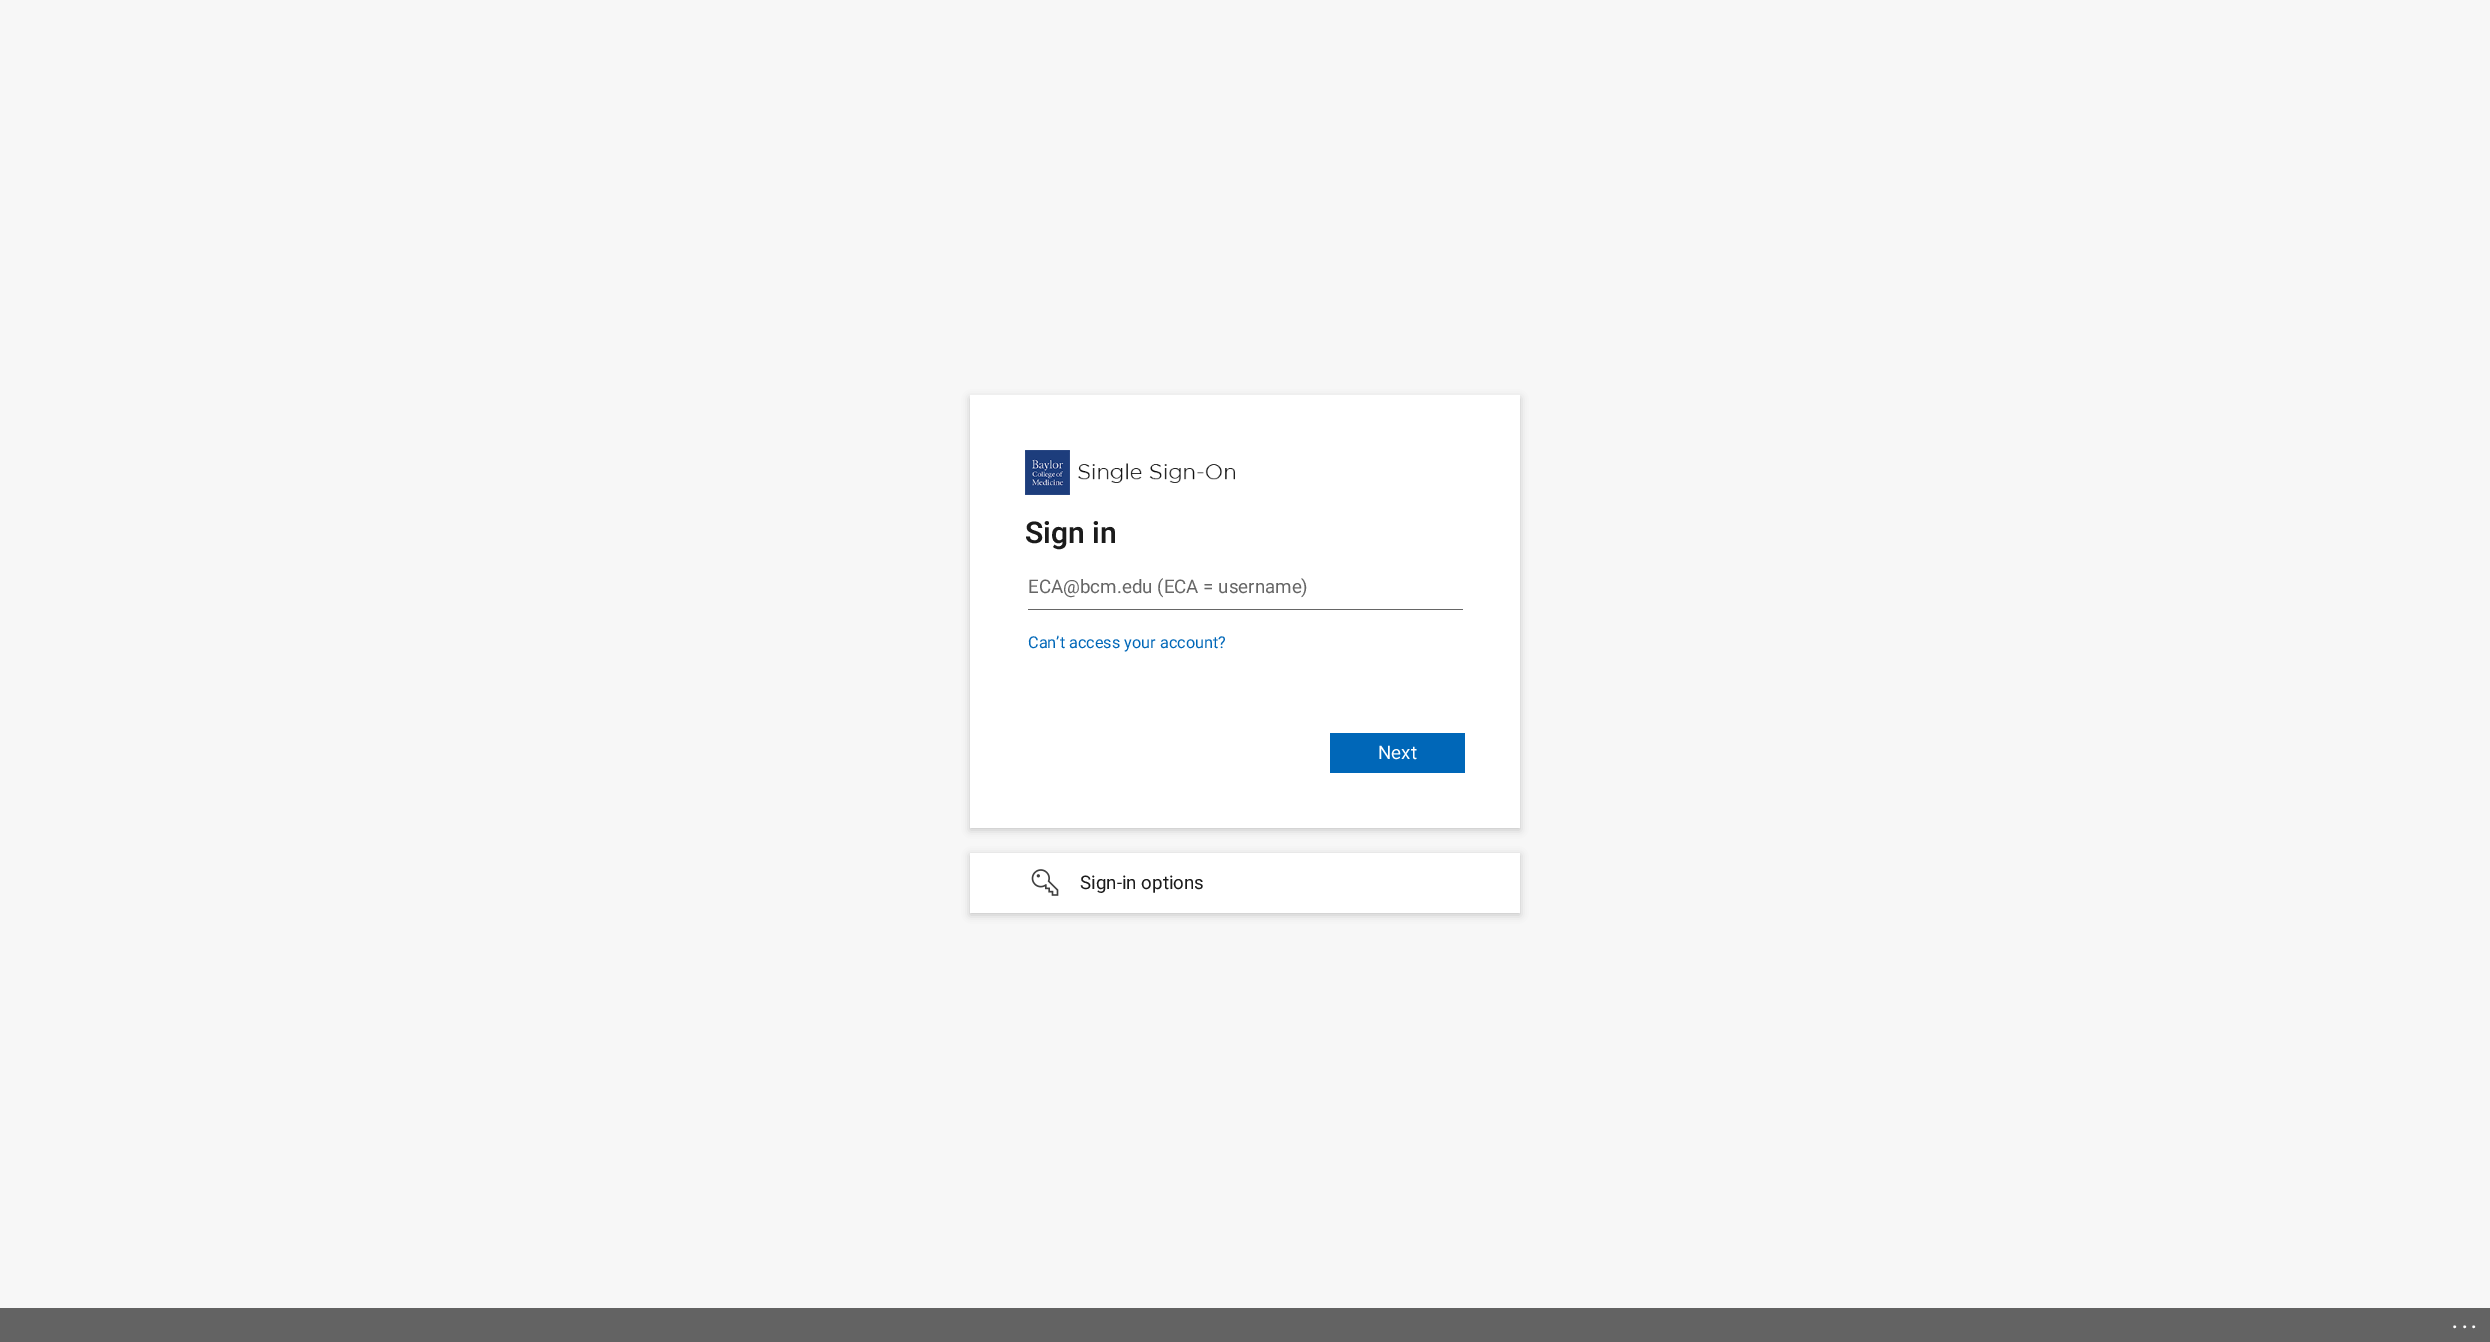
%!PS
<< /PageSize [2490 1342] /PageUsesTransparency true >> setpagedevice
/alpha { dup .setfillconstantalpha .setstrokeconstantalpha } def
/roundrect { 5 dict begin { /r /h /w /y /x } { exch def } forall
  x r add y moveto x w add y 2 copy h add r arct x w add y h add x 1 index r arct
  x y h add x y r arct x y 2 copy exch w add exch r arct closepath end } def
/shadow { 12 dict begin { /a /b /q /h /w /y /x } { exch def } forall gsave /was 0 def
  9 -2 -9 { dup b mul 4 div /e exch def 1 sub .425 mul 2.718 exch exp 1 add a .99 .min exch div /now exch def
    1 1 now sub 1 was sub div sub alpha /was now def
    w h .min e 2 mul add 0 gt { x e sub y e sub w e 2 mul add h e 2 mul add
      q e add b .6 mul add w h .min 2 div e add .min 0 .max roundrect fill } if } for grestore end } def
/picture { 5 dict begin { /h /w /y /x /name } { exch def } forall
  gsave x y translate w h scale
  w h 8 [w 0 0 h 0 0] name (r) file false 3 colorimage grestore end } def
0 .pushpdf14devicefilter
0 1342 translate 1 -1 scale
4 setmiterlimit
0.969 setgray
0 0 2490 1342 rectfill
0 setgray
970 398 550 432 0 4 0.2 shadow
1 setgray
970 395 550 433 rectfill
(img1.rgb) 1025 450 210 45 picture
/Roboto-SemiBold [30 0 0 -30 0 0] selectfont
0.106 setgray
1025 543 moveto (Sign in) show
0.4 setgray
1028 609 435 1 rectfill
/Roboto-Regular [18.75 0 0 -18.75 0 0] selectfont
1028 593 moveto (ECA@bcm.edu \(ECA = username\)) show
/Roboto-Regular [16.25 0 0 -16.25 0 0] selectfont
0 0.404 0.722 setrgbcolor
1028 648 moveto (Can’t access your account?) show
1330 733 135 40 rectfill
/Roboto-Regular [18.75 0 0 -18.75 0 0] selectfont
1 setgray
1378 759 moveto (Next) show
0 setgray
970 855 550 60 0 4 0.2 shadow
1 setgray
970 853 550 60 rectfill
(img2.rgb) 1031 869 28 27 picture
0.106 setgray
1080 889 moveto (Sign-in options) show
0.388 setgray
0 1308 2490 34 rectfill
/Roboto-SemiBold [20 0 0 -20 0 0] selectfont
1 setgray
2452 1328 moveto 4 0 (...) ashow
.poppdf14devicefilter showpage
